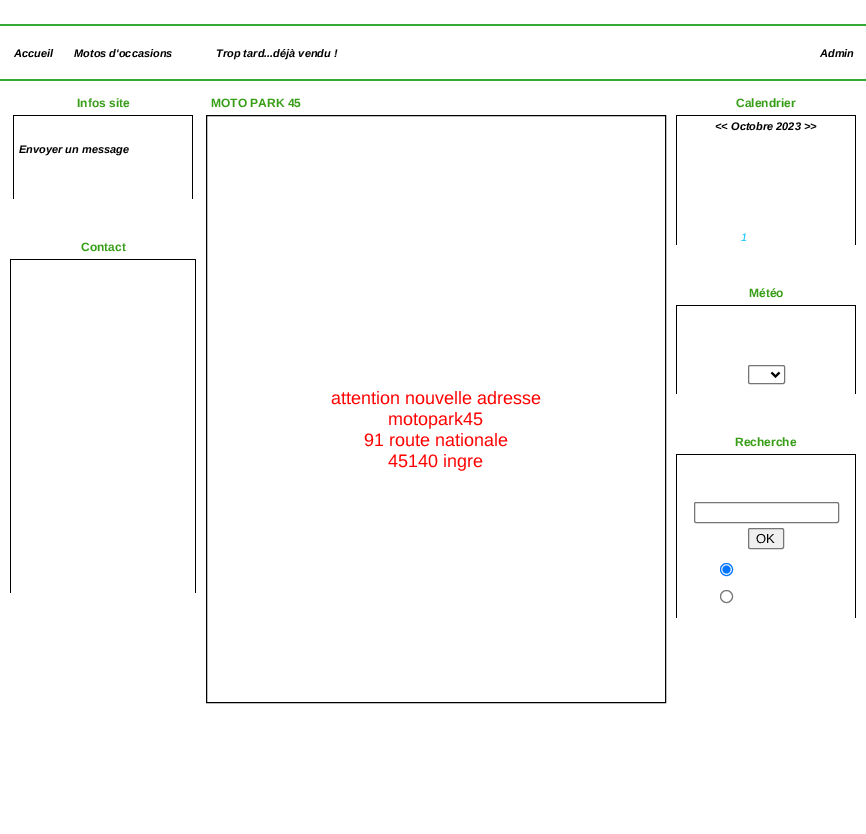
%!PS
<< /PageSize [866 834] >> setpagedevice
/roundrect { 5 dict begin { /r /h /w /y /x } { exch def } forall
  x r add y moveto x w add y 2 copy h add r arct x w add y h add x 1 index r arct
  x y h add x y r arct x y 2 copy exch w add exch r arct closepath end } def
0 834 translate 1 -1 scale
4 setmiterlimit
1 setgray
0 0 866 834 rectfill
0.2 0.667 0.2 setrgbcolor
0 24 866 2 rectfill
/LiberationSans-BoldItalic [11 0 0 -11 0 0] selectfont
0 setgray
14 57 moveto (Accueil) show
74 57 moveto (Motos d'occasions) show
216 57 moveto (Trop tard...déjà vendu !) show
820 57 moveto (Admin) show
0.2 0.667 0.2 setrgbcolor
0 79 866 2 rectfill
/LiberationSans-Bold [12 0 0 -12 0 0] selectfont
0.22 0.62 0.094 setrgbcolor
77 107 moveto (Infos site) show
0 setgray
13 115 180 1 rectfill
192 115 1 84 rectfill
13 115 1 84 rectfill
/LiberationSans-BoldItalic [11 0 0 -11 0 0] selectfont
19 153 moveto (Envoyer un message) show
/LiberationSans-Bold [12 0 0 -12 0 0] selectfont
0.22 0.62 0.094 setrgbcolor
81 251 moveto (Contact) show
0 setgray
10 259 186 1 rectfill
195 259 1 334 rectfill
10 259 1 334 rectfill
0.22 0.62 0.094 setrgbcolor
211 107 moveto (MOTO PARK 45) show
0 setgray
206.5 115.5 459 587 rectstroke
/LiberationSans-Regular [18 0 0 -18 0 0] selectfont
1 0 0 setrgbcolor
331 404 moveto (attention nouvelle adresse) show
388 425 moveto (motopark45) show
364 446 moveto (91 route nationale) show
388 467 moveto (45140 ingre) show
/LiberationSans-Bold [12 0 0 -12 0 0] selectfont
0.22 0.62 0.094 setrgbcolor
736 107 moveto (Calendrier) show
0 setgray
676 115 180 1 rectfill
855 115 1 130 rectfill
676 115 1 130 rectfill
/LiberationSans-BoldItalic [11 0 0 -11 0 0] selectfont
715 130 moveto (<<) show
731 130 moveto (Octobre 2023) show
804 130 moveto (>>) show
/LiberationSans-Italic [11 0 0 -11 0 0] selectfont
0 0.749 1 setrgbcolor
741 241 moveto (1) show
/LiberationSans-Bold [12 0 0 -12 0 0] selectfont
0.22 0.62 0.094 setrgbcolor
749 297 moveto (Météo) show
0 setgray
676 305 180 1 rectfill
855 305 1 89 rectfill
676 305 1 89 rectfill
0.463 setgray
748.5 365.5 36 18 1.5 roundrect stroke
0 setgray
2 setlinewidth
newpath 771.5 372.5 moveto 775.5 376.5 lineto 779.5 372.5 lineto stroke
0.22 0.62 0.094 setrgbcolor
735 446 moveto (Recherche) show
0 setgray
676 454 180 1 rectfill
855 454 1 164 rectfill
676 454 1 164 rectfill
0.463 setgray
1 setlinewidth
694.5 502.5 144 20 1.5 roundrect stroke
0.937 setgray
748.5 528.5 35 20 1.5 roundrect gsave fill grestore
0.463 setgray
stroke
/LiberationSans-Regular [13 0 0 -13 0 0] selectfont
0 setgray
756 543 moveto (OK) show
0 0.459 1 setrgbcolor
newpath 726.5 569.5 6 0 360 arc closepath stroke
newpath 726.5 569.5 4 0 360 arc closepath fill
0.463 setgray
newpath 726.5 596.5 6 0 360 arc closepath stroke
showpage
